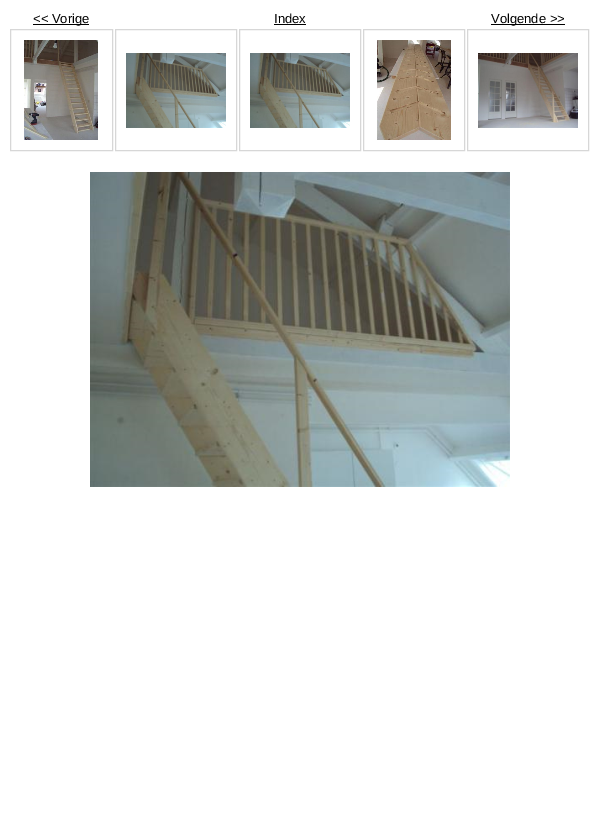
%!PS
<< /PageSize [599 833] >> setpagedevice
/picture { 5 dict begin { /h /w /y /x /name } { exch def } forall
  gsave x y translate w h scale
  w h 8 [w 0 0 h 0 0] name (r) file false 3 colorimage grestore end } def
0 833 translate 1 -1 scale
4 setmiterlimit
1 setgray
0 0 599 833 rectfill
0 setgray
33 24 56 1 rectfill
/LiberationSans-Regular [13 0 0 -13 0 0] selectfont
33 23 moveto (<< Vorige) show
274 23 moveto (Index) show
274 24 32 1 rectfill
491 24 74 1 rectfill
491 23 moveto (Volgende >>) show
0.843 setgray
10.5 29.5 102 121 rectstroke
(img1.rgb) 24 40 74 100 picture
115.5 29.5 121 121 rectstroke
(img2.rgb) 126 53 100 75 picture
239.5 29.5 121 121 rectstroke
(img3.rgb) 250 53 100 75 picture
363.5 29.5 101 121 rectstroke
(img4.rgb) 377 40 74 100 picture
467.5 29.5 121 121 rectstroke
(img5.rgb) 478 53 100 75 picture
(img6.rgb) 90 172 420 315 picture
showpage
